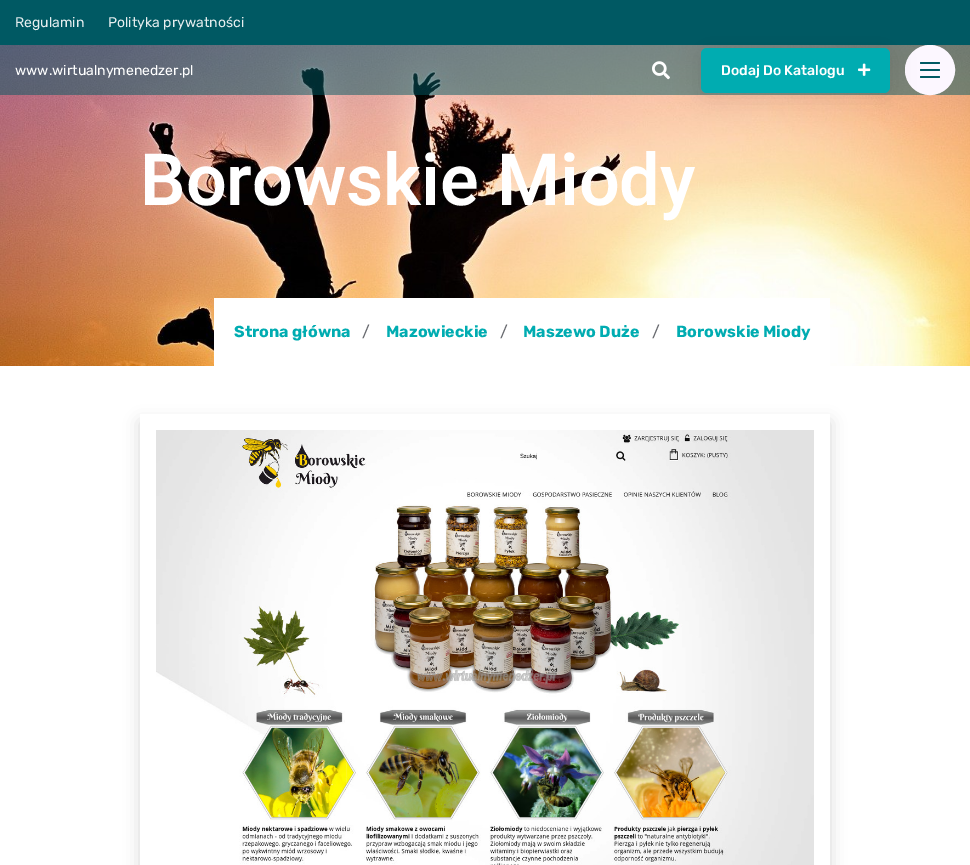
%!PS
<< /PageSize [970 865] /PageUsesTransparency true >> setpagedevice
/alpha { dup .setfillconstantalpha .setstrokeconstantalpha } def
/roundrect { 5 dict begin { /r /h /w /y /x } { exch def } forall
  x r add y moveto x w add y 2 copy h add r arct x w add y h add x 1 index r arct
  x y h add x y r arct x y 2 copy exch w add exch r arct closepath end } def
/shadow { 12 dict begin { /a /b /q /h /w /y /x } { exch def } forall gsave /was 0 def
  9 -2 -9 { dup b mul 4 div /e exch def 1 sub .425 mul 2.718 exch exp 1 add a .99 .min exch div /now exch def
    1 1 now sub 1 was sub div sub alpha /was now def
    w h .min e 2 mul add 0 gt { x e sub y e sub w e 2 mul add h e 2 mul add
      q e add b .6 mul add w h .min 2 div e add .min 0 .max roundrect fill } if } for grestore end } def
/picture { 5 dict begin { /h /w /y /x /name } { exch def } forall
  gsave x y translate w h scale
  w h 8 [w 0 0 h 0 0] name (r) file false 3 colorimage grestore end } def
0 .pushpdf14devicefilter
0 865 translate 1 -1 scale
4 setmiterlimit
1 setgray
0 0 970 865 rectfill
0 0.349 0.388 setrgbcolor
0 0 970 45 rectfill
/Rubik-Regular [14 0 0 -14 0 0] selectfont
0.902 0.933 0.937 setrgbcolor
15 27 moveto (Regulamin) show
108 27 moveto (Polityka prywatności) show
(img3.rgb) 0 45 970 321 picture
0.5 alpha
0 0.349 0.388 setrgbcolor
0 45 970 50 rectfill
1 alpha
1 setgray
15 75 moveto (www.wirtualnymenedzer.pl) show
(img1.rgb) 652 61 18 19 picture
0.988 0.969 1 setrgbcolor
newpath 930 70 24.5 0 360 arc closepath gsave fill grestore
stroke
0 0.349 0.388 setrgbcolor
920 62 20 2 1 roundrect fill
920 69 20 2 1 roundrect fill
920 76 20 2 1 roundrect fill
0 setgray
701 51 189 45 6 12 0.1 shadow
0 0.675 0.694 setrgbcolor
701 48 189 45 6 roundrect fill
/Rubik-Medium [14 0 0 -14 0 0] selectfont
1 setgray
721 75 moveto (Dodaj Do Katalogu) show
(img2.rgb) 858 63 13 13 picture
/Heebo-SemiBold [72 0 0 -72 0 0] selectfont
140 205 moveto (Borowskie Miody) show
214 298 616 68 rectfill
/Rubik-Bold [16 0 0 -16 0 0] selectfont
0 0.675 0.694 setrgbcolor
234 337 moveto (Strona główna) show
/Rubik-Regular [16 0 0 -16 0 0] selectfont
0.408 0.416 0.435 setrgbcolor
362 337 moveto (/) show
/Rubik-Bold [16 0 0 -16 0 0] selectfont
0 0.675 0.694 setrgbcolor
386 337 moveto (Mazowieckie) show
/Rubik-Regular [16 0 0 -16 0 0] selectfont
0.408 0.416 0.435 setrgbcolor
500 337 moveto (/) show
/Rubik-Bold [16 0 0 -16 0 0] selectfont
0 0.675 0.694 setrgbcolor
523 337 moveto (Maszewo Duże) show
/Rubik-Regular [16 0 0 -16 0 0] selectfont
0.408 0.416 0.435 setrgbcolor
652 337 moveto (/) show
/Rubik-Bold [16 0 0 -16 0 0] selectfont
0 0.675 0.694 setrgbcolor
676 337 moveto (Borowskie Miody) show
gsave
newpath 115 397 moveto 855 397 lineto 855 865 lineto 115 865 lineto closepath 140 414 moveto 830 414 lineto 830 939 lineto 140 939 lineto closepath eoclip newpath
0 setgray
140 422 690 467 0 8 0.15 shadow
grestore
(img4.rgb) 156 430 658 435 picture
.poppdf14devicefilter showpage
